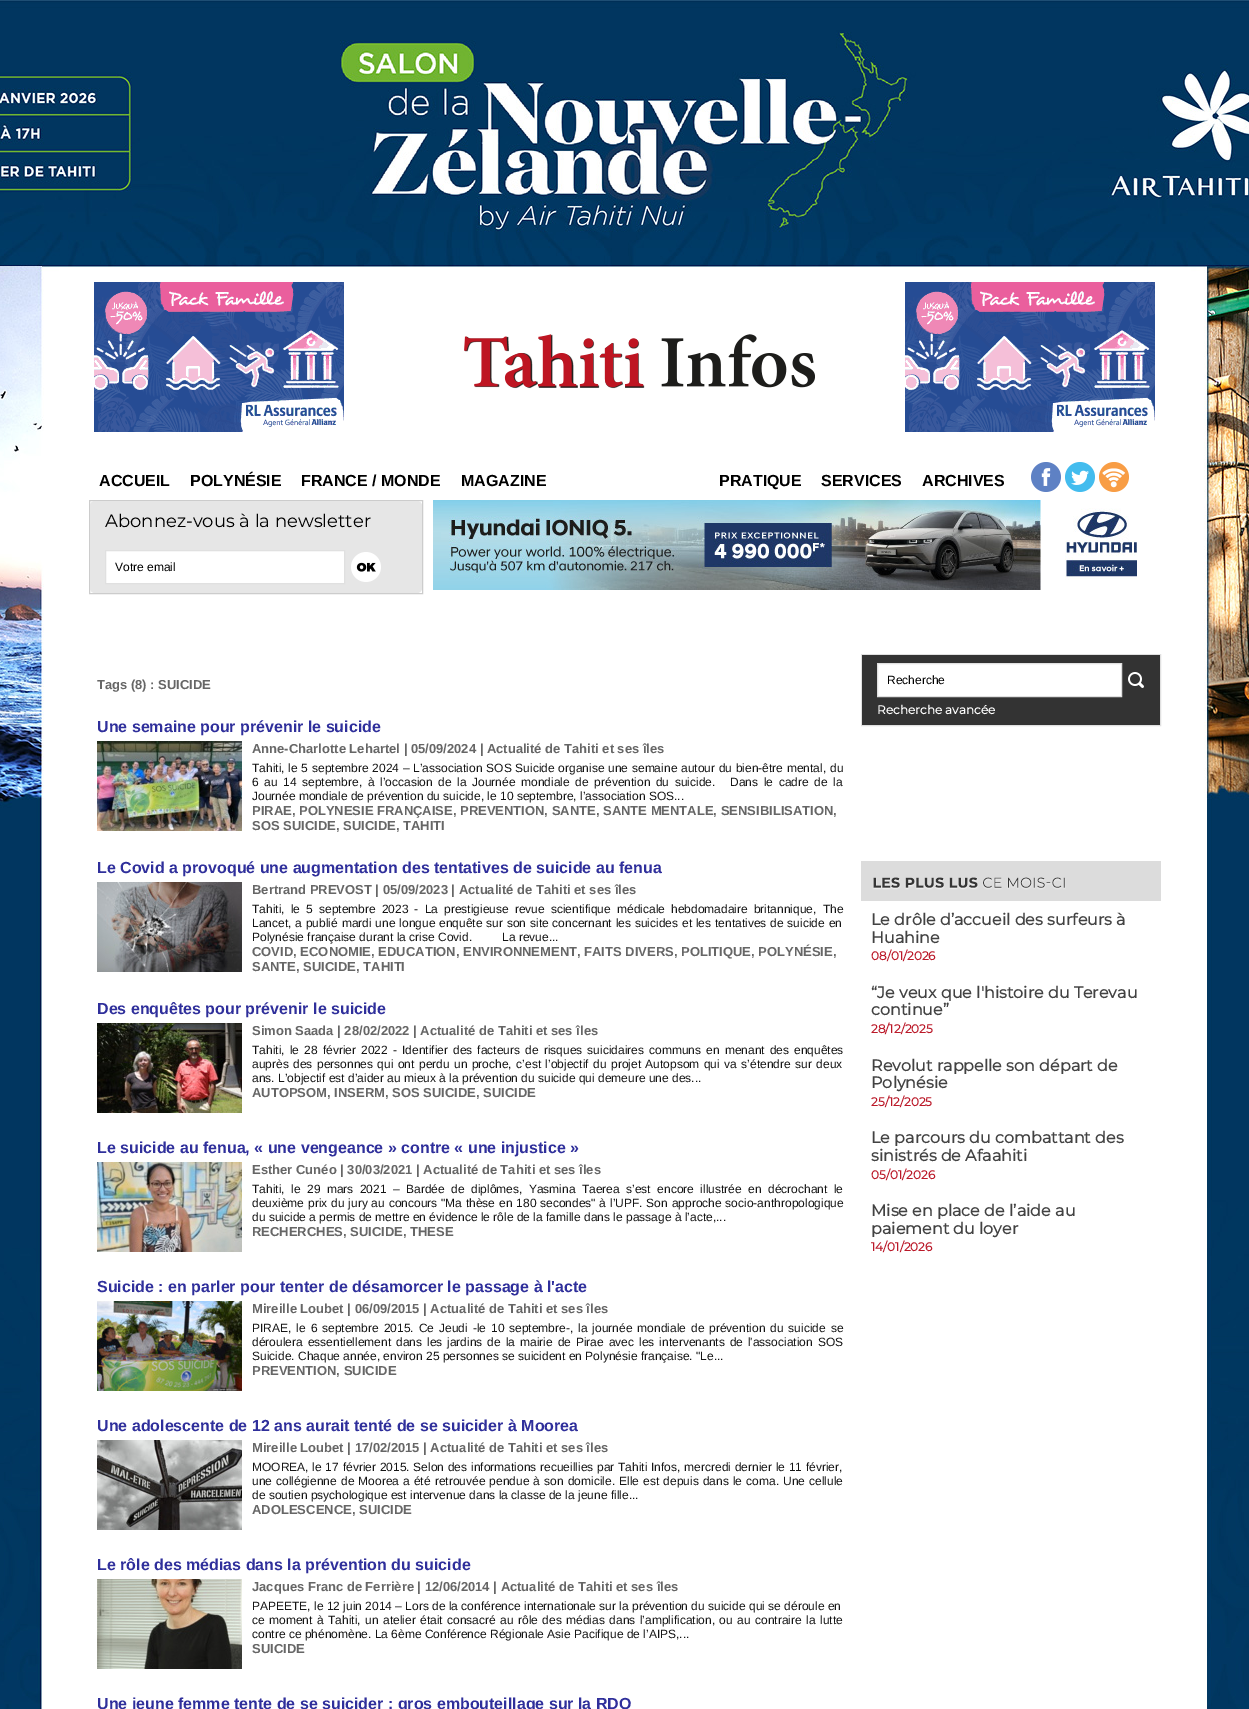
%!PS
<< /PageSize [1249 1709] >> setpagedevice
/picture { 5 dict begin { /h /w /y /x /name } { exch def } forall
  gsave x y translate w h scale
  w h 8 [w 0 0 h 0 0] name (r) file false 3 colorimage grestore end } def
0 1709 translate 1 -1 scale
4 setmiterlimit
1 setgray
0 0 1249 1709 rectfill
(img1.rgb) 0 0 1249 1709 picture
59 267 1132 5 rectfill
(img2.rgb) 94 282 250 150 picture
(img3.rgb) 464 334 351 55 picture
(img2.rgb) 905 282 250 150 picture
/LiberationSans-Bold [16 0 0 -16 0 0] selectfont
0 setgray
99 486 moveto (ACCUEIL) show
190 486 moveto (POLYNÉSIE) show
301 486 moveto (FRANCE / MONDE) show
461 486 moveto (MAGAZINE) show
719 486 moveto (PRATIQUE) show
821 486 moveto (SERVICES) show
922 486 moveto (ARCHIVES) show
(img4.rgb) 1031 462 30 30 picture
(img5.rgb) 1065 462 30 30 picture
(img6.rgb) 1099 462 30 30 picture
0.8 setgray
89.5 500.5 333 93 rectstroke
0.902 setgray
newpath 95 501 moveto 417 501 lineto 420 501 422 503 422 506 curveto 422 541 lineto 90 541 lineto 90 506 lineto 90 503 92 501 95 501 curveto closepath fill
/Montserrat-Thin [18 0 0 -18 0 0] selectfont
0 setgray
105 527 moveto (Abonnez-vous à la newsletter) show
0.902 setgray
newpath 90 541 moveto 422 541 lineto 422 588 lineto 422 591 420 593 417 593 curveto 95 593 lineto 92 593 90 591 90 588 curveto closepath fill
1 setgray
newpath 105.5 550.5 moveto 344.5 550.5 lineto 344.5 583.5 lineto 105.5 583.5 lineto closepath gsave fill grestore
0.878 setgray
stroke
/LiberationSans-Regular [12 0 0 -12 0 0] selectfont
0 setgray
115 571 moveto (Votre email) show
(img7.rgb) 351 552 30 30 picture
(img8.rgb) 433 500 704 90 picture
/LiberationSans-Bold [13 0 0 -13 0 0] selectfont
0.4 setgray
97 689 moveto (Tags \(8\) : SUICIDE) show
/LiberationSans-Bold [16 0 0 -16 0 0] selectfont
0.184 0.184 0.608 setrgbcolor
97 732 moveto (Une semaine pour prévenir le suicide) show
(img9.rgb) 97 741 145 90 picture
/LiberationSans-Bold [13 0 0 -13 0 0] selectfont
0.4 setgray
252 753 moveto (Anne-Charlotte Lehartel | 05/09/2024 | Actualité de Tahiti et ses îles) show
/LiberationSans-Regular [12 0 0 -12 0 0] selectfont
0.082 setgray
252 772 moveto 0.4 0 32 (Tahiti, le 5 septembre 2024 – L’association SOS Suicide organise une semaine autour du bien-être mental, du) widthshow
252 786 moveto 2.25 0 32 (6 au 14 septembre, à l’occasion de la Journée mondiale de prévention du suicide.) widthshow
730 786 moveto 2.25 0 32 (Dans le cadre de la) widthshow
252 800 moveto (Journée mondiale de prévention du suicide, le 10 septembre, l’association SOS...) show
/LiberationSans-Bold [13 0 0 -13 0 0] selectfont
0.4 setgray
252 815 moveto (PIRAE, POLYNESIE FRANÇAISE, PREVENTION, SANTE, SANTE MENTALE, SENSIBILISATION,) show
252 830 moveto (SOS SUICIDE, SUICIDE, TAHITI) show
/LiberationSans-Bold [16 0 0 -16 0 0] selectfont
0.184 0.184 0.608 setrgbcolor
97 873 moveto (Le Covid a provoqué une augmentation des tentatives de suicide au fenua) show
(img10.rgb) 97 882 145 90 picture
/LiberationSans-Bold [13 0 0 -13 0 0] selectfont
0.4 setgray
252 894 moveto (Bertrand PREVOST | 05/09/2023 | Actualité de Tahiti et ses îles) show
/LiberationSans-Regular [12 0 0 -12 0 0] selectfont
0.082 setgray
252 913 moveto 2.75 0 32 (Tahiti, le 5 septembre 2023 - La prestigieuse revue scientifique médicale hebdomadaire britannique, The) widthshow
252 927 moveto 0.5 0 32 (Lancet, a publié mardi une longue enquête sur son site concernant les suicides et les tentatives de suicide en) widthshow
252 941 moveto (Polynésie française durant la crise Covid.) show
502 941 moveto (La revue...) show
/LiberationSans-Bold [13 0 0 -13 0 0] selectfont
0.4 setgray
252 956 moveto (COVID, ECONOMIE, EDUCATION, ENVIRONNEMENT, FAITS DIVERS, POLITIQUE, POLYNÉSIE,) show
252 971 moveto (SANTE, SUICIDE, TAHITI) show
/LiberationSans-Bold [16 0 0 -16 0 0] selectfont
0.184 0.184 0.608 setrgbcolor
97 1014 moveto (Des enquêtes pour prévenir le suicide) show
(img11.rgb) 97 1023 145 90 picture
/LiberationSans-Bold [13 0 0 -13 0 0] selectfont
0.4 setgray
252 1035 moveto (Simon Saada | 28/02/2022 | Actualité de Tahiti et ses îles) show
/LiberationSans-Regular [12 0 0 -12 0 0] selectfont
0.082 setgray
252 1054 moveto 1.75 0 32 (Tahiti, le 28 février 2022 - Identifier des facteurs de risques suicidaires communs en menant des enquêtes) widthshow
252 1068 moveto 1.1 0 32 (auprès des personnes qui ont perdu un proche, c’est l’objectif du projet Autopsom qui va s’étendre sur deux) widthshow
252 1082 moveto (ans. L’objectif est d’aider au mieux à la prévention du suicide qui demeure une des...) show
/LiberationSans-Bold [13 0 0 -13 0 0] selectfont
0.4 setgray
252 1097 moveto (AUTOPSOM, INSERM, SOS SUICIDE, SUICIDE) show
/LiberationSans-Bold [16 0 0 -16 0 0] selectfont
0.184 0.184 0.608 setrgbcolor
97 1153 moveto (Le suicide au fenua, « une vengeance » contre « une injustice ») show
(img12.rgb) 97 1162 145 90 picture
/LiberationSans-Bold [13 0 0 -13 0 0] selectfont
0.4 setgray
252 1174 moveto (Esther Cunéo | 30/03/2021 | Actualité de Tahiti et ses îles) show
/LiberationSans-Regular [12 0 0 -12 0 0] selectfont
0.082 setgray
252 1193 moveto 3.1 0 32 (Tahiti, le 29 mars 2021 – Bardée de diplômes, Yasmina Taerea s’est encore illustrée en décrochant le) widthshow
252 1207 moveto 0.5 0 32 (deuxième prix du jury au concours "Ma thèse en 180 secondes" à l’UPF. Son approche socio-anthropologique) widthshow
252 1221 moveto (du suicide a permis de mettre en évidence le rôle de la famille dans le passage à l’acte,...) show
/LiberationSans-Bold [13 0 0 -13 0 0] selectfont
0.4 setgray
252 1236 moveto (RECHERCHES, SUICIDE, THESE) show
/LiberationSans-Bold [16 0 0 -16 0 0] selectfont
0.184 0.184 0.608 setrgbcolor
97 1292 moveto (Suicide : en parler pour tenter de désamorcer le passage à l'acte) show
(img13.rgb) 97 1301 145 90 picture
/LiberationSans-Bold [13 0 0 -13 0 0] selectfont
0.4 setgray
252 1313 moveto (Mireille Loubet | 06/09/2015 | Actualité de Tahiti et ses îles) show
/LiberationSans-Regular [12 0 0 -12 0 0] selectfont
0.082 setgray
252 1332 moveto 1.6 0 32 (PIRAE, le 6 septembre 2015. Ce Jeudi -le 10 septembre-, la journée mondiale de prévention du suicide se) widthshow
252 1346 moveto 1.6 0 32 (déroulera essentiellement dans les jardins de la mairie de Pirae avec les intervenants de l'association SOS) widthshow
252 1360 moveto (Suicide. Chaque année, environ 25 personnes se suicident en Polynésie française. "Le...) show
/LiberationSans-Bold [13 0 0 -13 0 0] selectfont
0.4 setgray
252 1375 moveto (PREVENTION, SUICIDE) show
/LiberationSans-Bold [16 0 0 -16 0 0] selectfont
0.184 0.184 0.608 setrgbcolor
97 1431 moveto (Une adolescente de 12 ans aurait tenté de se suicider à Moorea) show
(img14.rgb) 97 1440 145 90 picture
/LiberationSans-Bold [13 0 0 -13 0 0] selectfont
0.4 setgray
252 1452 moveto (Mireille Loubet | 17/02/2015 | Actualité de Tahiti et ses îles) show
/LiberationSans-Regular [12 0 0 -12 0 0] selectfont
0.082 setgray
252 1471 moveto 0.4 0 32 (MOOREA, le 17 février 2015. Selon des informations recueillies par Tahiti Infos, mercredi dernier le 11 février,) widthshow
252 1485 moveto 0.75 0 32 (une collégienne de Moorea a été retrouvée pendue à son domicile. Elle est depuis dans le coma. Une cellule) widthshow
252 1499 moveto (de soutien psychologique est intervenue dans la classe de la jeune fille...) show
/LiberationSans-Bold [13 0 0 -13 0 0] selectfont
0.4 setgray
252 1514 moveto (ADOLESCENCE, SUICIDE) show
/LiberationSans-Bold [16 0 0 -16 0 0] selectfont
0.184 0.184 0.608 setrgbcolor
97 1570 moveto (Le rôle des médias dans la prévention du suicide) show
(img15.rgb) 97 1579 145 90 picture
/LiberationSans-Bold [13 0 0 -13 0 0] selectfont
0.4 setgray
252 1591 moveto (Jacques Franc de Ferrière | 12/06/2014 | Actualité de Tahiti et ses îles) show
/LiberationSans-Regular [12 0 0 -12 0 0] selectfont
0.082 setgray
252 1610 moveto (PAPEETE, le 12 juin 2014 – Lors de la conférence internationale sur la prévention du suicide qui se déroule en) show
252 1624 moveto 1.1 0 32 (ce moment à Tahiti, un atelier était consacré au rôle des médias dans l’amplification, ou au contraire la lutte) widthshow
252 1638 moveto (contre ce phénomène. La 6ème Conférence Régionale Asie Pacifique de l’AIPS,...) show
/LiberationSans-Bold [13 0 0 -13 0 0] selectfont
0.4 setgray
252 1653 moveto (SUICIDE) show
/LiberationSans-Bold [16 0 0 -16 0 0] selectfont
0.184 0.184 0.608 setrgbcolor
97 1709 moveto (Une jeune femme tente de se suicider : gros embouteillage sur la RDO) show
0.878 setgray
861.5 654.5 299 71 rectstroke
0.2 setgray
862 655 298 70 rectfill
1 setgray
newpath 877.5 663.5 moveto 1121.5 663.5 lineto 1121.5 696.5 lineto 877.5 696.5 lineto closepath gsave fill grestore
0.878 setgray
stroke
/LiberationSans-Regular [12 0 0 -12 0 0] selectfont
0 setgray
887 684 moveto (Recherche) show
(img16.rgb) 1128 672 16 16 picture
/Montserrat-Bold [12 0 0 -12 0 0] selectfont
1 setgray
877 714 moveto (Recherche avancée) show
(img17.rgb) 861 861 300 40 picture
/Montserrat-Bold [16 0 0 -16 0 0] selectfont
0.259 setgray
871 925 moveto (Le drôle d’accueil des surfeurs à) show
871 943 moveto (Huahine) show
/Montserrat-Bold [12 0 0 -12 0 0] selectfont
0.733 0.098 0.161 setrgbcolor
871 960 moveto (08/01/2026) show
/Montserrat-Bold [16 0 0 -16 0 0] selectfont
0.259 setgray
871 998 moveto (“Je veux que l'histoire du Terevau) show
871 1015 moveto (continue”) show
/Montserrat-Bold [12 0 0 -12 0 0] selectfont
0.733 0.098 0.161 setrgbcolor
871 1033 moveto (28/12/2025) show
/Montserrat-Bold [16 0 0 -16 0 0] selectfont
0.259 setgray
871 1071 moveto (Revolut rappelle son départ de) show
871 1088 moveto (Polynésie) show
/Montserrat-Bold [12 0 0 -12 0 0] selectfont
0.733 0.098 0.161 setrgbcolor
871 1106 moveto (25/12/2025) show
/Montserrat-Bold [16 0 0 -16 0 0] selectfont
0.259 setgray
871 1143 moveto (Le parcours du combattant des) show
871 1161 moveto (sinistrés de Afaahiti) show
/Montserrat-Bold [12 0 0 -12 0 0] selectfont
0.733 0.098 0.161 setrgbcolor
871 1179 moveto (05/01/2026) show
/Montserrat-Bold [16 0 0 -16 0 0] selectfont
0.259 setgray
871 1216 moveto (Mise en place de l’aide au) show
871 1234 moveto (paiement du loyer) show
/Montserrat-Bold [12 0 0 -12 0 0] selectfont
0.733 0.098 0.161 setrgbcolor
871 1251 moveto (14/01/2026) show
showpage
